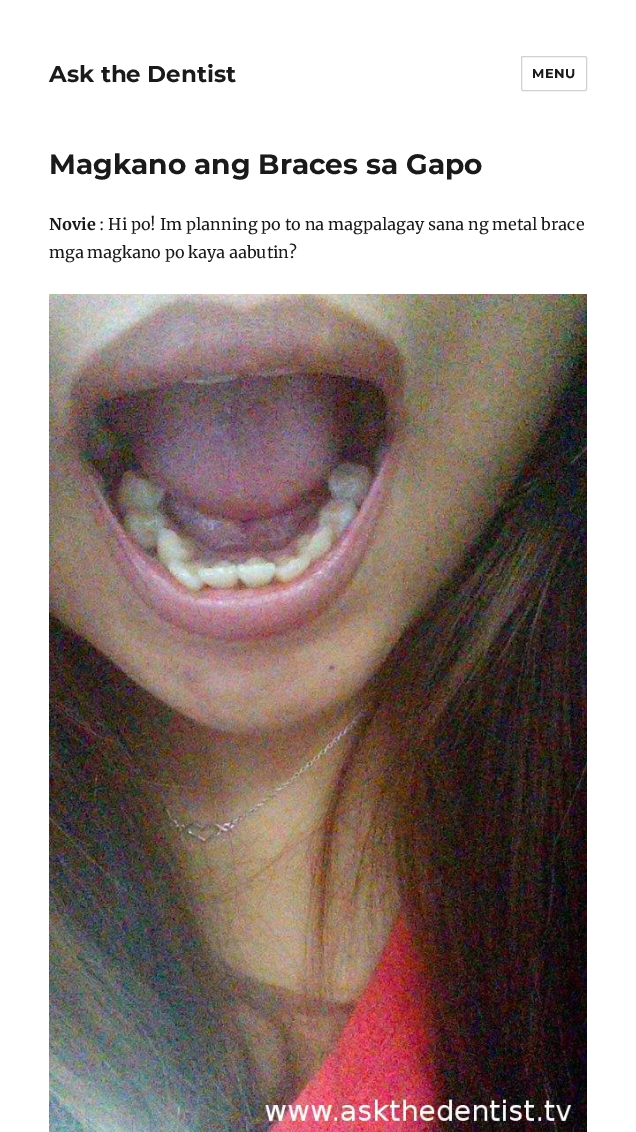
%!PS
<< /PageSize [636 1132] >> setpagedevice
/roundrect { 5 dict begin { /r /h /w /y /x } { exch def } forall
  x r add y moveto x w add y 2 copy h add r arct x w add y h add x 1 index r arct
  x y h add x y r arct x y 2 copy exch w add exch r arct closepath end } def
/picture { 5 dict begin { /h /w /y /x /name } { exch def } forall
  gsave x y translate w h scale
  w h 8 [w 0 0 h 0 0] name (r) file false 3 colorimage grestore end } def
0 1132 translate 1 -1 scale
4 setmiterlimit
1 setgray
0 0 636 1132 rectfill
/Montserrat-Thin [23 0 0 -23 0 0] selectfont
0.102 setgray
49 82 moveto (Ask the Dentist) show
0.82 setgray
521.5 56.5 65 34 1.5 roundrect stroke
/Montserrat-Thin [13 0 0 -13 0 0] selectfont
0.102 setgray
532 78 moveto 0.5 0 (MENU) ashow
/Montserrat-Thin [28 0 0 -28 0 0] selectfont
49 174 moveto (Magkano ang Braces sa Gapo) show
/Merriweather-Bold [16 0 0 -16 0 0] selectfont
49 230 moveto (Novie) show
/Merriweather-Regular [16 0 0 -16 0 0] selectfont
99 230 moveto (: Hi po! Im planning po to na magpalagay sana ng metal brace) show
49 258 moveto (mga magkano po kaya aabutin?) show
(img1.rgb) 49 294 538 838 picture
showpage
